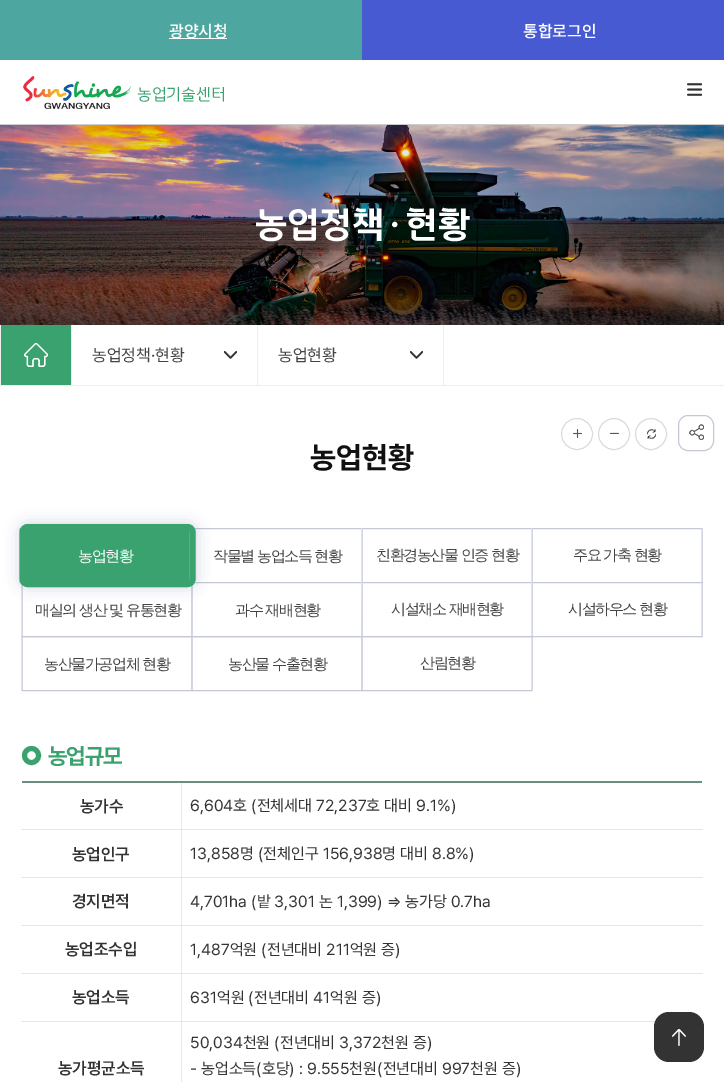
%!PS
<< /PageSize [724 1082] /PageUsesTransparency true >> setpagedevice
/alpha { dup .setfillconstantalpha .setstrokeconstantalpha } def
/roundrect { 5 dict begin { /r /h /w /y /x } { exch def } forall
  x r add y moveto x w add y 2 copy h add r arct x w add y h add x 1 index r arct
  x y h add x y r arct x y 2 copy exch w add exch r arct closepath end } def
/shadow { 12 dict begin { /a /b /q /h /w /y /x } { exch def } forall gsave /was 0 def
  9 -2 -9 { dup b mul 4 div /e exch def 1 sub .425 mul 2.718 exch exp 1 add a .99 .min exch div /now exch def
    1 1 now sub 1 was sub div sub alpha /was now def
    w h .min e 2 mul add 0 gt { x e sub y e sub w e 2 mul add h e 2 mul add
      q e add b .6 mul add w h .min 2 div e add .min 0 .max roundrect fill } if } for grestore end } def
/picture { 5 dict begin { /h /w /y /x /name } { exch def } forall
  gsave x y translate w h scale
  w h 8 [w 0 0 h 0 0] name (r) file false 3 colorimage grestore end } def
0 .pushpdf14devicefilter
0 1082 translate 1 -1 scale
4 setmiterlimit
1 setgray
0 0 724 1082 rectfill
0.8 setgray
0 124 724 1 rectfill
0.302 0.655 0.627 setrgbcolor
0 0 362 60 rectfill
1 setgray
169 38 58 1 rectfill
/NotoSansKR-Medium [16 0 0 -16 0 0] selectfont
169 37 moveto (광양시청) show
0.278 0.353 0.824 setrgbcolor
362 0 362 60 rectfill
1 setgray
523 37 moveto (통합로그인) show
(img1.rgb) 23 76 109 33 picture
/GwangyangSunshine-Regular [16 0 0 -16 0 0] selectfont
0.227 0.635 0.435 setrgbcolor
137 99 moveto (농업기술센터) show
(img2.rgb) 687 83 15 13 picture
(img3.rgb) 0 125 724 200 picture
/GwangyangSunshine-Bold [35 0 0 -35 0 0] selectfont
1 setgray
255 235 moveto (농업정책·현황) show
0.933 setgray
0 385 724 1 rectfill
0 325 1 60 rectfill
71 325 1 60 rectfill
0.227 0.635 0.435 setrgbcolor
1 325 70 60 rectfill
(img4.rgb) 24 343 24 24 picture
0.933 setgray
257 325 1 60 rectfill
/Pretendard-Regular [17 0 0 -17 0 0] selectfont
0.267 setgray
92 361 moveto (농업정책·현황) show
(img5.rgb) 224 351 13 8 picture
0.933 setgray
443 325 1 60 rectfill
0.267 setgray
278 361 moveto (농업현황) show
(img5.rgb) 410 351 13 8 picture
(img6.rgb) 573 429 9 9 picture
0.859 setgray
newpath 577 434 15.5 0 360 arc closepath stroke
(img7.rgb) 610 432 9 2 picture
newpath 614 434 15.5 0 360 arc closepath stroke
(img8.rgb) 647 429 9 10 picture
newpath 651 434 15.5 0 360 arc closepath stroke
0.773 0.788 0.839 setrgbcolor
678.5 415.5 35 35 9.5 roundrect stroke
(img9.rgb) 689 424 15 16 picture
/Pretendard-Bold [30 0 0 -30 0 0] selectfont
0.067 setgray
310 468 moveto (농업현황) show
0.227 0.635 0.435 setrgbcolor
20 529 170 53 rectfill
0.773 0.788 0.839 setrgbcolor
newpath 20 528.5 moveto 190 528.5 lineto 190 582.5 lineto 20 582.5 lineto closepath stroke
newpath 192 528.5 moveto 362 528.5 lineto 362 582.5 lineto 192 582.5 lineto closepath stroke
newpath 22 582.5 moveto 192 582.5 lineto 192 636.5 lineto 22 636.5 lineto closepath stroke
1 setgray
361 528 2 54 rectfill
0.773 0.788 0.839 setrgbcolor
newpath 362 528.5 moveto 532 528.5 lineto 532 582.5 lineto 362 582.5 lineto closepath stroke
1 setgray
newpath 192 582 moveto 362 582 lineto 363 637 lineto 192 637 lineto closepath fill
0.773 0.788 0.839 setrgbcolor
newpath 192 582.5 moveto 362 582.5 lineto 362 636.5 lineto 192 636.5 lineto closepath stroke
gsave
newpath 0 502 moveto 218 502 lineto 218 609 lineto 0 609 lineto closepath 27.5 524 moveto 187.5 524 lineto 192 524 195.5 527.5 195.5 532 curveto 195.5 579 lineto 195.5 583.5 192 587 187.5 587 curveto 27.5 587 lineto 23.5 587 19.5 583.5 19.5 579 curveto 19.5 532 lineto 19.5 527.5 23.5 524 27.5 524 curveto closepath eoclip newpath
0.051 0.141 0.306 setrgbcolor
20 524 176 63 8 7 0.2 shadow
grestore
/WenQuanYiZenHei-Medium [15 0 0 -15 0 0] selectfont
1 setgray
78 561 moveto -1.4 0 (농업현황) ashow
0.227 0.635 0.435 setrgbcolor
6 setlinewidth
newpath 27.5 527 moveto 187.5 527 lineto 190.5 527 192.5 529.5 192.5 532 curveto 192.5 579 lineto 192.5 582 190.5 584 187.5 584 curveto 27.5 584 lineto 25 584 22.5 582 22.5 579 curveto 22.5 532 lineto 22.5 529.5 25 527 27.5 527 curveto closepath stroke
0.267 setgray
213 561 moveto -1.4 0 (작물별 농업소득 현황) ashow
376 560 moveto -1.4 0 (친환경농산물 인증 현황) ashow
1 setgray
531 528 2 54 rectfill
0.773 0.788 0.839 setrgbcolor
1 setlinewidth
newpath 532 528.5 moveto 702 528.5 lineto 702 582.5 lineto 532 582.5 lineto closepath stroke
0.267 setgray
573 560 moveto -1.4 0 (주요 가축 현황) ashow
35 615 moveto -1.4 0 (매실의 생산 및 유통현황) ashow
235 615 moveto -1.4 0 (과수 재배현황) ashow
1 setgray
newpath 361 582 moveto 532 582 lineto 532 637 lineto 362 637 lineto closepath fill
0.773 0.788 0.839 setrgbcolor
newpath 362 582.5 moveto 532 582.5 lineto 532 636.5 lineto 362 636.5 lineto closepath stroke
0.267 setgray
391 614 moveto -1.4 0 (시설채소 재배현황) ashow
1 setgray
531 582 171 54 rectfill
0.773 0.788 0.839 setrgbcolor
newpath 532 582.5 moveto 702 582.5 lineto 702 636.5 lineto 532 636.5 lineto closepath stroke
0.267 setgray
568 614 moveto -1.4 0 (시설하우스 현황) ashow
0.773 0.788 0.839 setrgbcolor
newpath 22 636.5 moveto 192 636.5 lineto 192 690.5 lineto 22 690.5 lineto closepath stroke
0.267 setgray
44 669 moveto -1.4 0 (농산물가공업체 현황) ashow
1 setgray
192 637 1 53 rectfill
0.773 0.788 0.839 setrgbcolor
newpath 192 636.5 moveto 362 636.5 lineto 362 690.5 lineto 192 690.5 lineto closepath stroke
0.267 setgray
228 669 moveto -1.4 0 (농산물 수출현황) ashow
1 setgray
362 637 1 53 rectfill
0.773 0.788 0.839 setrgbcolor
newpath 362 636.5 moveto 532 636.5 lineto 532 690.5 lineto 362 690.5 lineto closepath stroke
0.267 setgray
420 668 moveto -1.4 0 (산림현황) ashow
0.227 0.635 0.435 setrgbcolor
5 setlinewidth
newpath 31.5 755.5 7 0 360 arc closepath stroke
/Pretendard-Bold [22.5 0 0 -22.5 0 0] selectfont
48 764 moveto -1 0 (농업규모) ashow
0.89 0.91 0.914 setrgbcolor
181 1021 1 61 rectfill
181 1021 522 1 rectfill
181 973 1 49 rectfill
181 973 522 1 rectfill
181 925 1 49 rectfill
181 925 522 1 rectfill
181 877 1 49 rectfill
181 877 522 1 rectfill
181 829 1 49 rectfill
181 829 522 1 rectfill
181 782 1 48 rectfill
0.412 0.565 0.49 setrgbcolor
22 781 680 2 rectfill
0.89 0.91 0.914 setrgbcolor
21 829 161 1 rectfill
/Pretendard-SemiBold [16.75 0 0 -16.75 0 0] selectfont
0.2 setgray
80 812 moveto (농가수) show
/Pretendard-Regular [16 0 0 -16 0 0] selectfont
190 811 moveto (6,604호 \(전체세대 72,237호 대비 9.1%\)) show
0.89 0.91 0.914 setrgbcolor
21 877 161 1 rectfill
/Pretendard-SemiBold [16.75 0 0 -16.75 0 0] selectfont
0.2 setgray
72 860 moveto (농업인구) show
/Pretendard-Regular [16 0 0 -16 0 0] selectfont
190 859 moveto (13,858명 \(전체인구 156,938명 대비 8.8%\)) show
0.89 0.91 0.914 setrgbcolor
21 925 161 1 rectfill
/Pretendard-SemiBold [16.75 0 0 -16.75 0 0] selectfont
0.2 setgray
72 907 moveto (경지면적) show
/Pretendard-Regular [16 0 0 -16 0 0] selectfont
190 907 moveto (4,701ha \(밭 3,301 논 1,399\) ⇒ 농가당 0.7ha) show
0.89 0.91 0.914 setrgbcolor
21 973 161 1 rectfill
/Pretendard-SemiBold [16.75 0 0 -16.75 0 0] selectfont
0.2 setgray
65 955 moveto (농업조수입) show
/Pretendard-Regular [16 0 0 -16 0 0] selectfont
190 955 moveto (1,487억원 \(전년대비 211억원 증\)) show
0.89 0.91 0.914 setrgbcolor
21 1021 161 1 rectfill
/Pretendard-SemiBold [16.75 0 0 -16.75 0 0] selectfont
0.2 setgray
72 1003 moveto (농업소득) show
/Pretendard-Regular [16 0 0 -16 0 0] selectfont
190 1003 moveto (631억원 \(전년대비 41억원 증\)) show
/Pretendard-SemiBold [16.75 0 0 -16.75 0 0] selectfont
58 1074 moveto (농가평균소득) show
/Pretendard-Regular [16 0 0 -16 0 0] selectfont
190 1048 moveto (50,034천원 \(전년대비 3,372천원 증\)) show
190 1074 moveto (- 농업소득\(호당\) : 9.555천원\(전년대비 997천원 증\)) show
654 1012 50 50 15 roundrect fill
(img10.rgb) 672 1029 14 17 picture
.poppdf14devicefilter showpage
